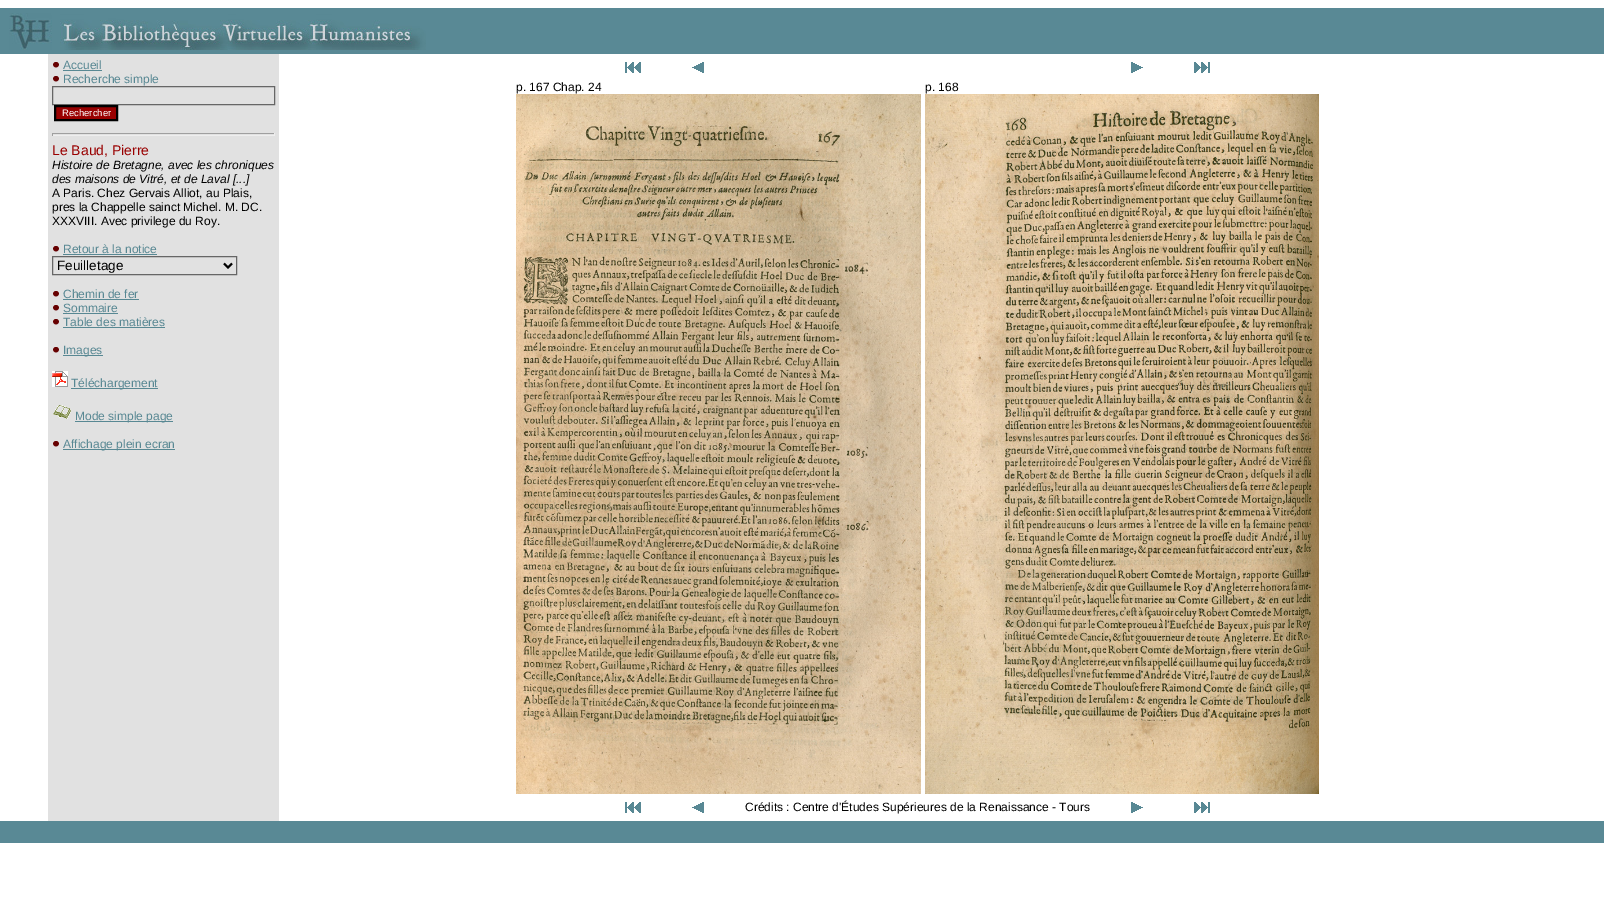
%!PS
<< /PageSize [1604 914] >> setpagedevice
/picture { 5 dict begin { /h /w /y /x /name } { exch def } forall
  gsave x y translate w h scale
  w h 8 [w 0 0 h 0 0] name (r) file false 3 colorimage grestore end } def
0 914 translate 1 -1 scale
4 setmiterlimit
1 setgray
0 0 1604 914 rectfill
0.349 0.537 0.584 setrgbcolor
0 8 1604 46 rectfill
(img1.rgb) 9 13 417 37 picture
0.882 setgray
48 54 231 767 rectfill
(img2.rgb) 53 62 7 7 picture
/LiberationSans-Regular [12 0 0 -12 0 0] selectfont
0.345 0.533 0.576 setrgbcolor
63 69 moveto (Accueil) show
63 70 39 1 rectfill
(img2.rgb) 53 76 7 7 picture
63 83 moveto (Recherche simple) show
0.4 setgray
52.5 86.5 222 18 rectstroke
0.6 0 0 setrgbcolor
newpath 55 106 moveto 117 106 lineto 117 120 lineto 55 120 lineto closepath gsave fill grestore
0 setgray
2 setlinewidth
stroke
/LiberationSans-Regular [9.5 0 0 -9.5 0 0] selectfont
1 setgray
62 116 moveto (Rechercher) show
0.624 setgray
52 133 223 1 rectfill
0.933 setgray
274 133 1 3 rectfill
52 135 223 1 rectfill
0.624 setgray
52 133 1 3 rectfill
/LiberationSans-Regular [14 0 0 -14 0 0] selectfont
0.6 0 0 setrgbcolor
52 155 moveto (Le Baud, Pierre) show
/LiberationSans-Italic [12 0 0 -12 0 0] selectfont
0 setgray
52 169 moveto (Histoire de Bretagne, avec les chroniques) show
52 183 moveto (des maisons de Vitré, et de Laval [...]) show
/LiberationSans-Regular [12 0 0 -12 0 0] selectfont
52 197 moveto (A Paris. Chez Gervais Alliot, au Plais,) show
52 211 moveto (pres la Chappelle sainct Michel. M. DC.) show
52 225 moveto (XXXVIII. Avec privilege du Roy.) show
(img2.rgb) 53 246 7 7 picture
0.345 0.533 0.576 setrgbcolor
63 253 moveto (Retour à la notice) show
63 254 94 1 rectfill
0.4 setgray
1 setlinewidth
52.5 256.5 184 18 rectstroke
0 setgray
2 setlinewidth
newpath 224 263.5 moveto 228 267.5 lineto 232 263.5 lineto stroke
/LiberationSans-Regular [13.5 0 0 -13.5 0 0] selectfont
57 270 moveto (Feuilletage) show
(img2.rgb) 53 291 7 7 picture
/LiberationSans-Regular [12 0 0 -12 0 0] selectfont
0.345 0.533 0.576 setrgbcolor
63 298 moveto (Chemin de fer) show
63 299 76 1 rectfill
(img2.rgb) 53 305 7 7 picture
63 312 moveto (Sommaire) show
63 313 55 1 rectfill
(img2.rgb) 53 319 7 7 picture
63 326 moveto (Table des matières) show
63 327 102 1 rectfill
(img2.rgb) 53 347 7 7 picture
63 355 40 1 rectfill
63 354 moveto (Images) show
(img3.rgb) 52 371 16 16 picture
71 388 87 1 rectfill
71 387 moveto (Téléchargement) show
(img4.rgb) 53 405 18 14 picture
75 421 98 1 rectfill
75 420 moveto (Mode simple page) show
(img2.rgb) 53 441 7 7 picture
63 449 112 1 rectfill
63 448 moveto (Affichage plein ecran) show
(img5.rgb) 625 62 16 11 picture
(img6.rgb) 692 62 12 11 picture
(img7.rgb) 1131 62 12 11 picture
(img8.rgb) 1194 62 16 11 picture
0 setgray
516 91 moveto (p. 167 Chap. 24) show
(img9.rgb) 516 94 405 700 picture
925 91 moveto (p. 168) show
(img10.rgb) 925 94 394 700 picture
(img5.rgb) 625 802 16 11 picture
(img6.rgb) 692 802 12 11 picture
745 811 moveto (Crédits : Centre d'Études Supérieures de la Renaissance - Tours) show
(img7.rgb) 1131 802 12 11 picture
(img8.rgb) 1194 802 16 11 picture
0.349 0.537 0.584 setrgbcolor
0 821 1604 22 rectfill
showpage
